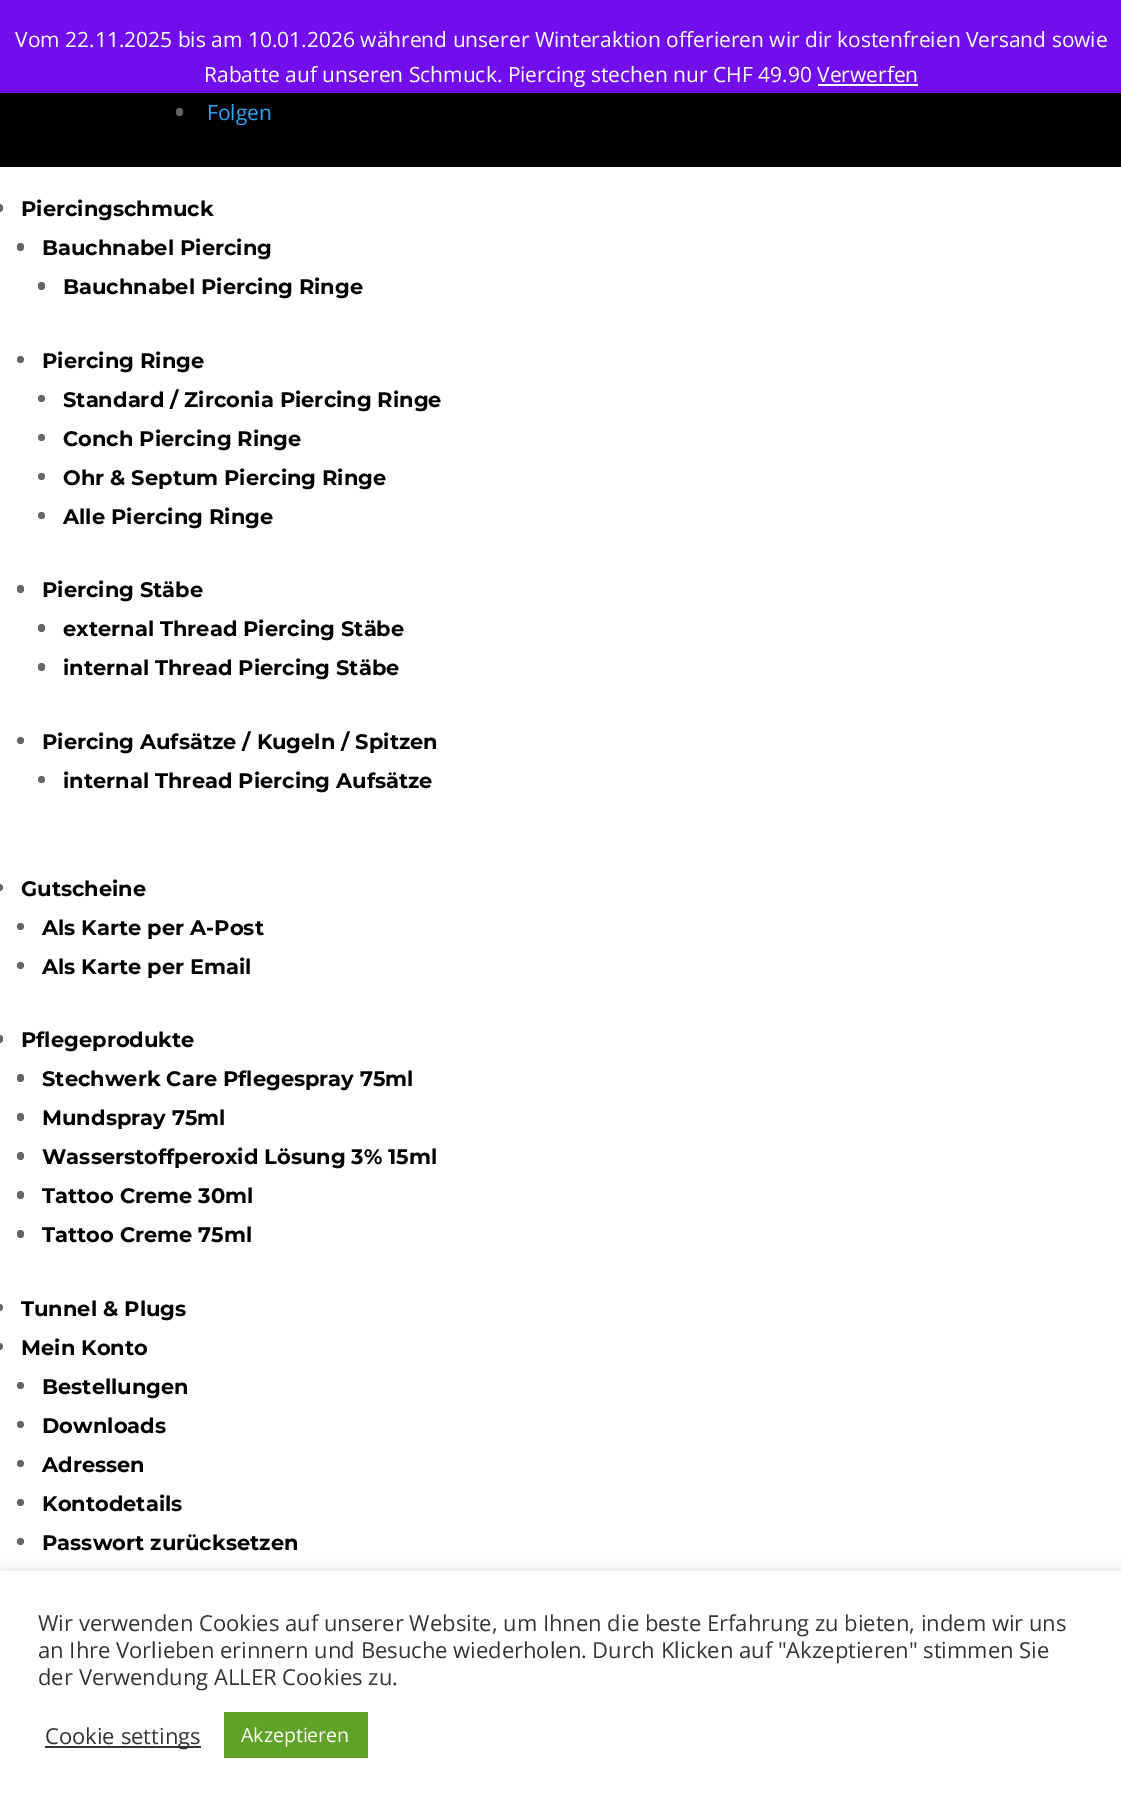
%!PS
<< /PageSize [1121 1803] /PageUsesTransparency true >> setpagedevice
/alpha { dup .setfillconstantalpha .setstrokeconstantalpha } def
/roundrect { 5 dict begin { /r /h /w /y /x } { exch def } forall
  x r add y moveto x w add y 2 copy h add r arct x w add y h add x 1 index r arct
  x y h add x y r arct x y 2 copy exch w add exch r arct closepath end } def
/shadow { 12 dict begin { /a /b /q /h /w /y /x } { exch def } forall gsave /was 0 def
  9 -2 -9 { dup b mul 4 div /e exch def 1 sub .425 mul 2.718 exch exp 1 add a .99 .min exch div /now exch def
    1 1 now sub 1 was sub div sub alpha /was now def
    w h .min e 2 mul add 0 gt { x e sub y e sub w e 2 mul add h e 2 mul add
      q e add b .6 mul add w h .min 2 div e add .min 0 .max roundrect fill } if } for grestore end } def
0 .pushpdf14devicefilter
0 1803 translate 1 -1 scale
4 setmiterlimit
1 setgray
0 0 1121 1803 rectfill
0 setgray
0 93 1121 74 rectfill
0.4 setgray
176 108 7 8 3.5 roundrect fill
0 setgray
0 2 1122 93 0 10.5 0.2 shadow
0.447 0.055 0.925 setrgbcolor
0 0 1121 93 rectfill
/OpenSans-Regular [21 0 0 -21 0 0] selectfont
1 setgray
15 47 moveto (Vom 22.11.2025 bis am 10.01.2026 während unserer Winteraktion offerieren wir dir kostenfreien Versand sowie) show
204 82 moveto (Rabatte auf unseren Schmuck. Piercing stechen nur CHF 49.90 Verwerfen) show
0.988 0.984 0.996 setrgbcolor
818 84 100 2 rectfill
0.18 0.639 0.949 setrgbcolor
207 120 moveto (Folgen) show
0.4 setgray
newpath 0 204 moveto -0.5 204 lineto 1.5 204 3 205.5 3 207.5 curveto 3 208.5 lineto 3 210.5 1.5 212 -0.5 212 curveto 0 212 lineto closepath fill
/Montserrat-Bold [21 0 0 -21 0 0] selectfont
0 setgray
21 216 moveto (Piercingschmuck) show
0.4 setgray
17 243 7 8 3.5 roundrect fill
0 setgray
42 255 moveto (Bauchnabel Piercing) show
0.4 setgray
38 282 7 8 3.5 roundrect fill
0 setgray
63 294 moveto (Bauchnabel Piercing Ringe) show
0.4 setgray
newpath 20.5 359.5 3.5 0 360 arc closepath fill
0 setgray
42 368 moveto (Piercing Ringe) show
0.4 setgray
newpath 41.5 398.5 3.5 0 360 arc closepath fill
0 setgray
63 407 moveto (Standard / Zirconia Piercing Ringe) show
0.4 setgray
newpath 41.5 437.5 3.5 0 360 arc closepath fill
0 setgray
63 446 moveto (Conch Piercing Ringe) show
0.4 setgray
newpath 41.5 476.5 3.5 0 360 arc closepath fill
0 setgray
63 485 moveto (Ohr & Septum Piercing Ringe) show
0.4 setgray
newpath 41.5 515.5 3.5 0 360 arc closepath fill
0 setgray
63 524 moveto (Alle Piercing Ringe) show
0.4 setgray
17 585 7 8 3.5 roundrect fill
0 setgray
42 597 moveto (Piercing Stäbe) show
0.4 setgray
38 624 7 8 3.5 roundrect fill
0 setgray
63 636 moveto (external Thread Piercing Stäbe) show
0.4 setgray
38 663 7 8 3.5 roundrect fill
0 setgray
63 675 moveto (internal Thread Piercing Stäbe) show
0.4 setgray
newpath 20.5 740.5 3.5 0 360 arc closepath fill
0 setgray
42 749 moveto (Piercing Aufsätze / Kugeln / Spitzen) show
0.4 setgray
newpath 41.5 779.5 3.5 0 360 arc closepath fill
0 setgray
63 788 moveto (internal Thread Piercing Aufsätze) show
0.4 setgray
newpath 0 884 moveto -0.5 884 lineto 1.5 884 3 885.5 3 887.5 curveto 3 889.5 1.5 891 -0.5 891 curveto 0 891 lineto closepath fill
0 setgray
21 896 moveto (Gutscheine) show
0.4 setgray
newpath 20.5 926.5 3.5 0 360 arc closepath fill
0 setgray
42 935 moveto (Als Karte per A-Post) show
0.4 setgray
newpath 20.5 965.5 3.5 0 360 arc closepath fill
0 setgray
42 974 moveto (Als Karte per Email) show
0.4 setgray
newpath 0 1035 moveto -0.5 1035 lineto 1.5 1035 3 1036.5 3 1038.5 curveto 3 1039.5 lineto 3 1041.5 1.5 1043 -0.5 1043 curveto 0 1043 lineto closepath fill
0 setgray
21 1047 moveto (Pflegeprodukte) show
0.4 setgray
17 1074 7 8 3.5 roundrect fill
0 setgray
42 1086 moveto (Stechwerk Care Pflegespray 75ml) show
0.4 setgray
17 1113 7 8 3.5 roundrect fill
0 setgray
42 1125 moveto (Mundspray 75ml) show
0.4 setgray
17 1152 7 8 3.5 roundrect fill
0 setgray
42 1164 moveto (Wasserstoffperoxid Lösung 3% 15ml) show
0.4 setgray
17 1191 7 8 3.5 roundrect fill
0 setgray
42 1203 moveto (Tattoo Creme 30ml) show
0.4 setgray
17 1230 7 8 3.5 roundrect fill
0 setgray
42 1242 moveto (Tattoo Creme 75ml) show
0.4 setgray
newpath 0 1304 moveto -0.5 1304 lineto 1.5 1304 3 1305.5 3 1307.5 curveto 3 1309.5 1.5 1311 -0.5 1311 curveto 0 1311 lineto closepath fill
0 setgray
21 1316 moveto (Tunnel & Plugs) show
0.4 setgray
newpath 0 1343 moveto -0.5 1343 lineto 1.5 1343 3 1344.5 3 1346.5 curveto 3 1348.5 1.5 1350 -0.5 1350 curveto 0 1350 lineto closepath fill
0 setgray
21 1355 moveto (Mein Konto) show
0.4 setgray
newpath 20.5 1385.5 3.5 0 360 arc closepath fill
0 setgray
42 1394 moveto (Bestellungen) show
0.4 setgray
newpath 20.5 1424.5 3.5 0 360 arc closepath fill
0 setgray
42 1433 moveto (Downloads) show
0.4 setgray
newpath 20.5 1463.5 3.5 0 360 arc closepath fill
0 setgray
42 1472 moveto (Adressen) show
0.4 setgray
newpath 20.5 1502.5 3.5 0 360 arc closepath fill
0 setgray
42 1511 moveto (Kontodetails) show
0.4 setgray
newpath 20.5 1541.5 3.5 0 360 arc closepath fill
0 setgray
42 1550 moveto (Passwort zurücksetzen) show
0.675 0.671 0.671 setrgbcolor
0 1569 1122 233 0 7.5 0.3 shadow
1 setgray
0 1571 1121 232 rectfill
/OpenSans-Regular [22 0 0 -22 0 0] selectfont
0.2 setgray
38 1631 moveto (Wir verwenden Cookies auf unserer Website, um Ihnen die beste Erfahrung zu bieten, indem wir uns) show
38 1658 moveto (an Ihre Vorlieben erinnern und Besuche wiederholen. Durch Klicken auf "Akzeptieren" stimmen Sie) show
38 1685 moveto (der Verwendung ALLER Cookies zu.) show
45 1746 156 2 rectfill
45 1744 moveto (Cookie settings) show
0.38 0.635 0.161 setrgbcolor
224 1712 144 46 rectfill
/OpenSans-Regular [19.5 0 0 -19.5 0 0] selectfont
1 setgray
241 1742 moveto (Akzeptieren) show
.poppdf14devicefilter showpage
